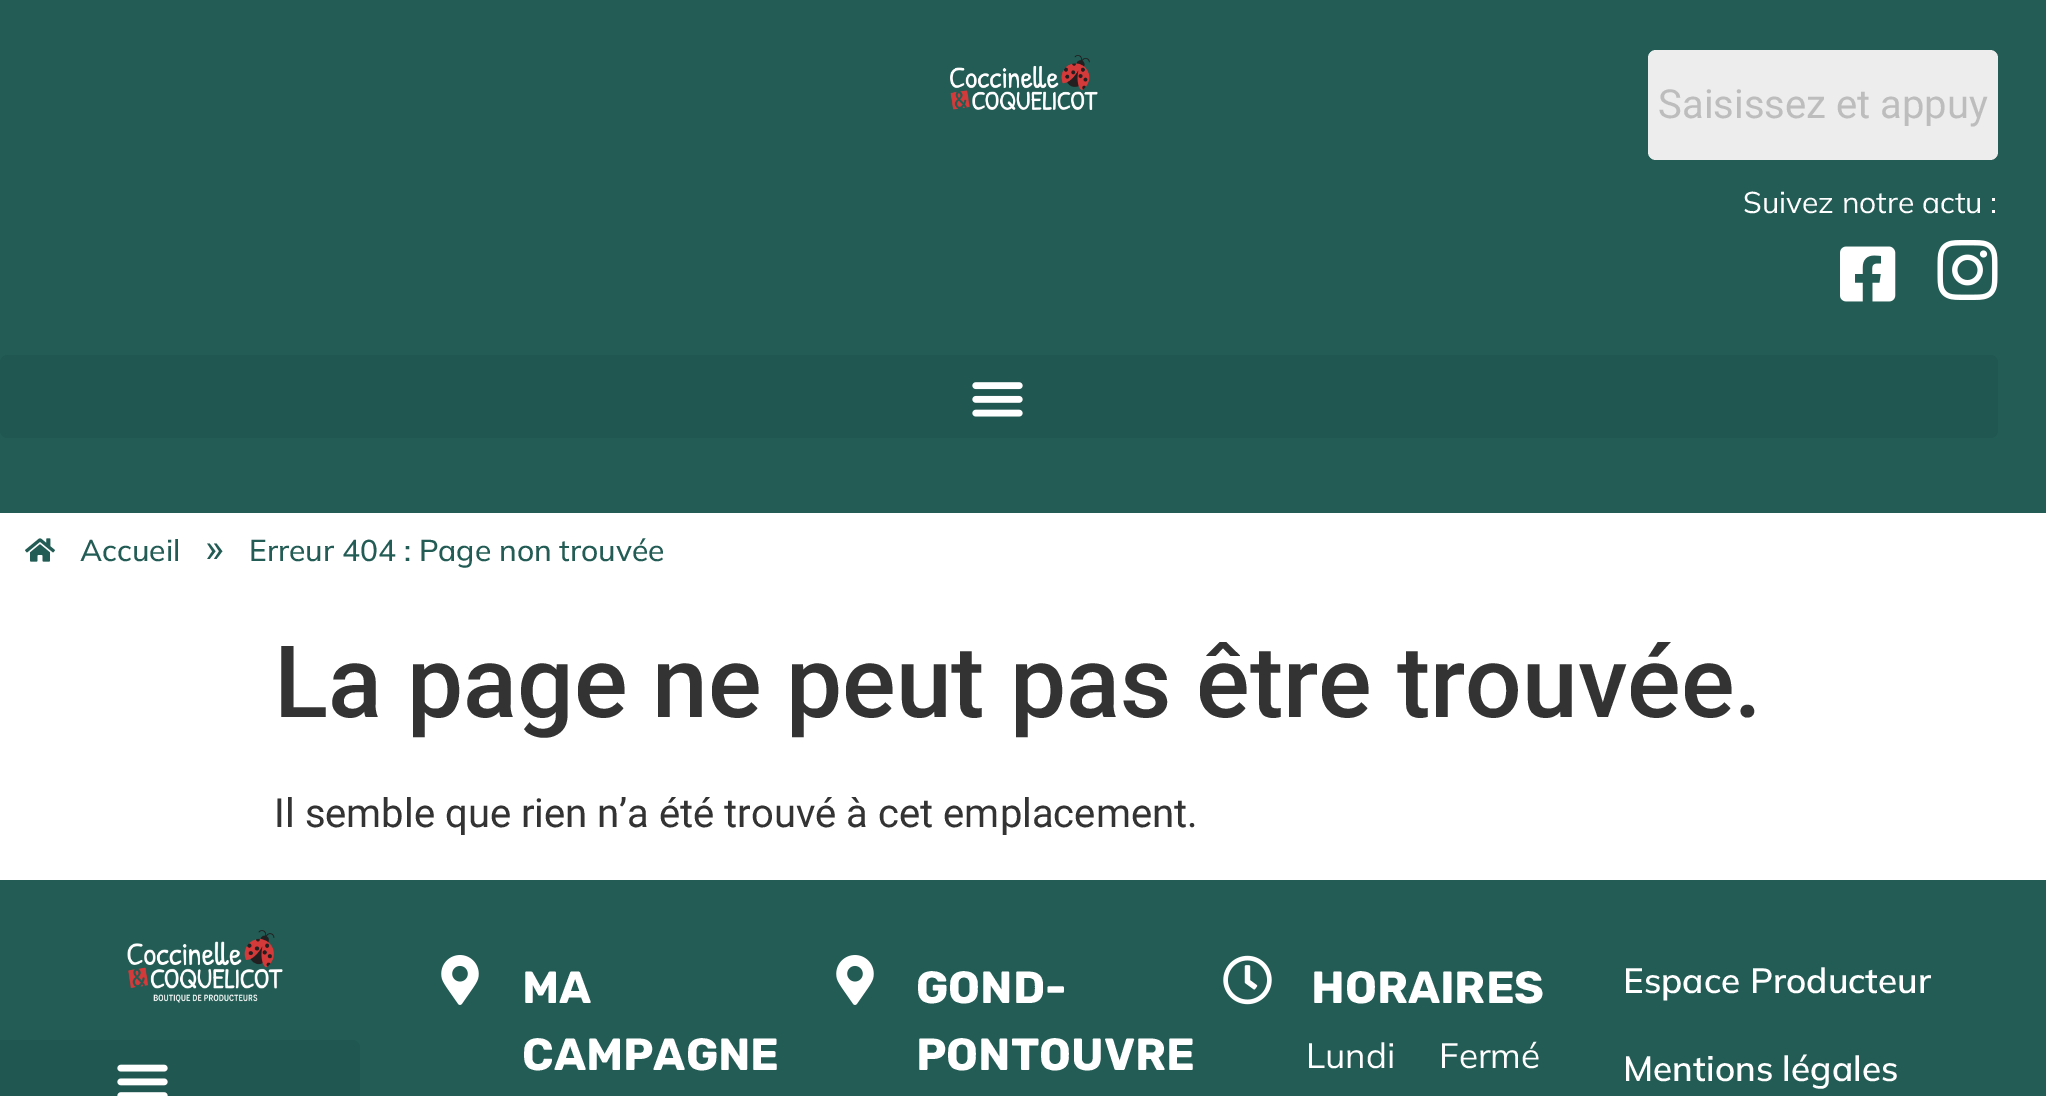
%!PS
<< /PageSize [2046 1096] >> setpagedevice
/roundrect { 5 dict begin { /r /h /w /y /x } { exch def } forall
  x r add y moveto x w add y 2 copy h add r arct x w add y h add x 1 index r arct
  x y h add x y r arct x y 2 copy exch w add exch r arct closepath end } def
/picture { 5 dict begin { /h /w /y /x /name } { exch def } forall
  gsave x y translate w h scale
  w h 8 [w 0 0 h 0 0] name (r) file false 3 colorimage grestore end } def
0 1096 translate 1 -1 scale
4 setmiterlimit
1 setgray
0 0 2046 1096 rectfill
0.133 0.361 0.329 setrgbcolor
0 0 2046 513 rectfill
(img1.rgb) 950 55 148 55 picture
0.929 setgray
1648 50 350 110 8 roundrect fill
/Roboto-Regular [40 0 0 -40 0 0] selectfont
0.741 setgray
1658 118 moveto (Saisissez et appuy) show
/Mulish-Regular [30 0 0 -30 0 0] selectfont
1 setgray
1743 213 moveto (Suivez notre actu :) show
(img2.rgb) 1840 246 56 56 picture
(img3.rgb) 1937 240 61 60 picture
0.125 0.341 0.314 setrgbcolor
0 355 1998 83 8 roundrect fill
(img4.rgb) 972 382 51 35 picture
(img5.rgb) 25 538 30 24 picture
/Mulish-Medium [30 0 0 -30 0 0] selectfont
0.133 0.361 0.329 setrgbcolor
80 561 moveto (Accueil) show
/Roboto-Regular [40 0 0 -40 0 0] selectfont
205 562 moveto (») show
/Mulish-Medium [30 0 0 -30 0 0] selectfont
249 561 moveto (Erreur 404 : Page non trouvée) show
/Roboto-Medium [100 0 0 -100 0 0] selectfont
0.2 setgray
274 717 moveto (La page ne peut pas être trouvée.) show
/Roboto-Regular [40 0 0 -40 0 0] selectfont
274 827 moveto (Il semble que rien n’a été trouvé à cet emplacement.) show
0.133 0.361 0.329 setrgbcolor
0 880 2046 216 rectfill
(img6.rgb) 127 930 156 73 picture
0.125 0.341 0.314 setrgbcolor
-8 1040 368 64 8 roundrect fill
(img7.rgb) 117 1064 51 32 picture
(img8.rgb) 441 955 38 50 picture
/Rubik-Bold [45 0 0 -45 0 0] selectfont
1 setgray
522 1003 moveto (MA) show
522 1070 moveto (CAMPAGNE) show
(img8.rgb) 836 955 38 50 picture
916 1003 moveto (GOND-) show
916 1070 moveto (PONTOUVRE) show
(img9.rgb) 1223 955 49 50 picture
1311 1003 moveto (HORAIRES) show
/Mulish-Regular [35 0 0 -35 0 0] selectfont
1306 1068 moveto (Lundi) show
1439 1068 moveto (Fermé) show
/Mulish-SemiBold [35 0 0 -35 0 0] selectfont
1623 993 moveto (Espace Producteur) show
1623 1081 moveto (Mentions légales) show
showpage
